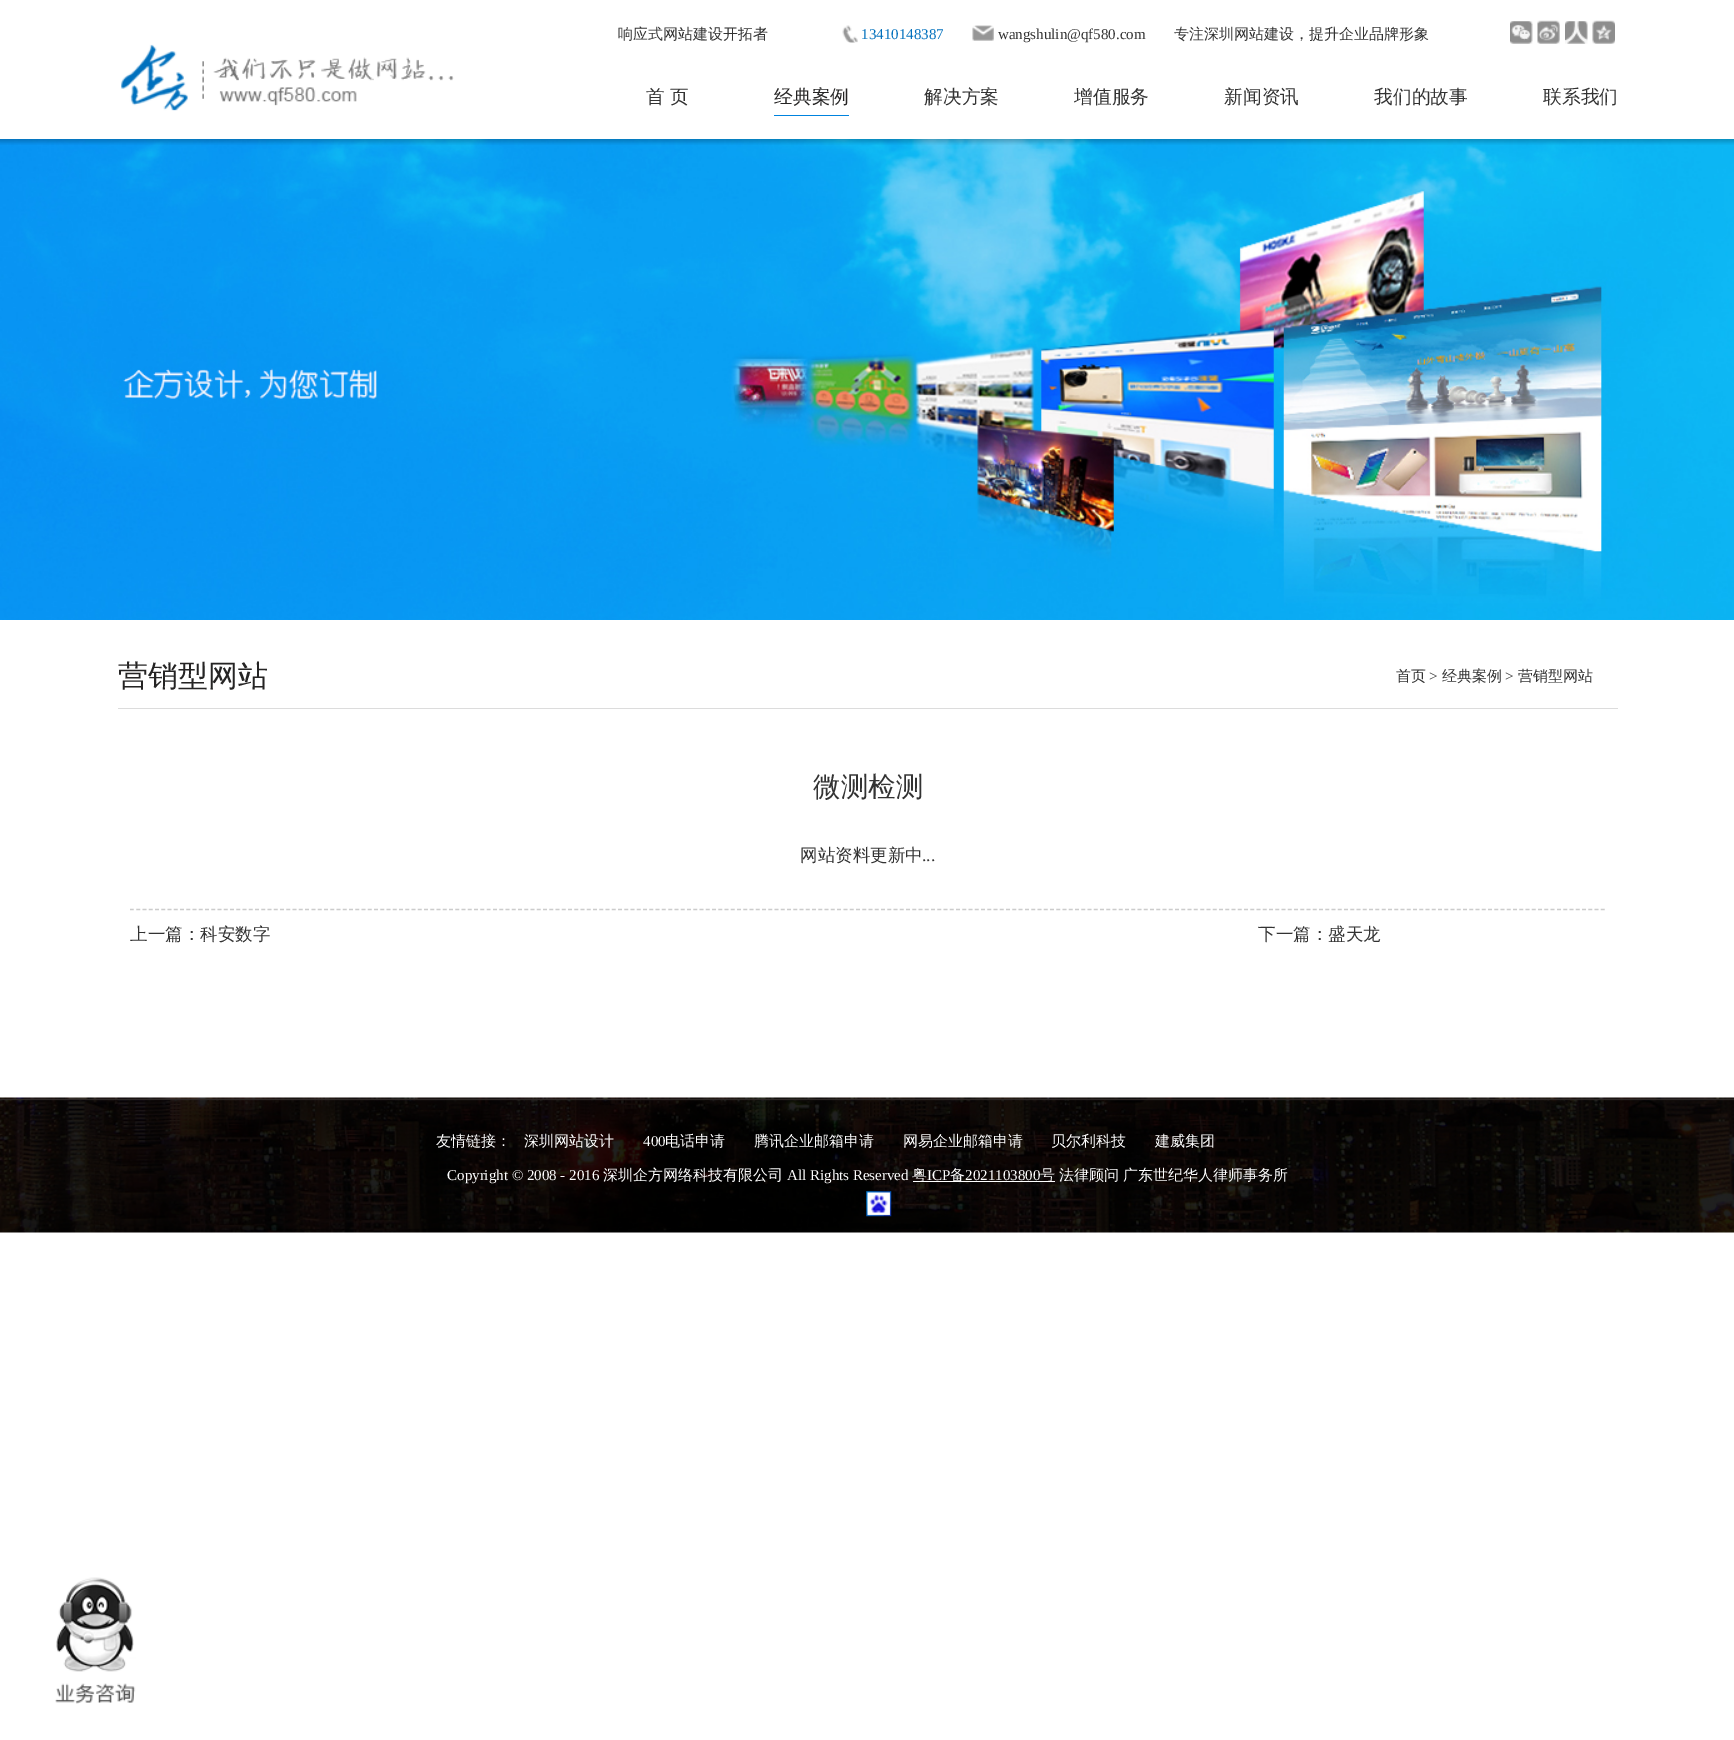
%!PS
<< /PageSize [1734 1740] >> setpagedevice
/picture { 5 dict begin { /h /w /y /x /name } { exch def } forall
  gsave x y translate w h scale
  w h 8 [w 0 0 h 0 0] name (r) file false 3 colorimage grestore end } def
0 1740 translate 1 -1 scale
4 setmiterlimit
1 setgray
0 0 1734 1740 rectfill
(img1.rgb) 121 44 333 67 picture
/WenQuanYiZenHei-Medium [15 0 0 -15 0 0] selectfont
0.2 setgray
618 39 moveto (响应式网站建设开拓者) show
(img2.rgb) 842 25 16 18 picture
/LiberationSerif-Regular [15 0 0 -15 0 0] selectfont
0 0.439 0.741 setrgbcolor
861 39 moveto (13410148387) show
(img3.rgb) 972 25 22 16 picture
0.2 setgray
998 39 moveto (wangshulin@qf580.com) show
/WenQuanYiZenHei-Medium [15 0 0 -15 0 0] selectfont
1174 39 moveto (专注深圳网站建设，提升企业品牌形象) show
(img4.rgb) 1510 21 23 23 picture
(img5.rgb) 1537 20 23 24 picture
(img6.rgb) 1565 21 23 23 picture
(img7.rgb) 1592 20 23 24 picture
/WenQuanYiZenHei-Medium [18.75 0 0 -18.75 0 0] selectfont
646 103 moveto (首) show
670 103 moveto (页) show
0 0.514 0.871 setrgbcolor
774 115 75 1 rectfill
0.145 0.141 0.141 setrgbcolor
774 103 moveto (经典案例) show
0.2 setgray
924 103 moveto (解决方案) show
1074 103 moveto (增值服务) show
1224 103 moveto (新闻资讯) show
1374 103 moveto (我们的故事) show
1543 103 moveto (联系我们) show
(img9.rgb) 0 139 1734 481 picture
(img8.rgb) 0 139 1734 6 picture
0.863 setgray
118 708 1500 1 rectfill
/WenQuanYiZenHei-Medium [30 0 0 -30 0 0] selectfont
0.145 0.141 0.141 setrgbcolor
118 686 moveto (营销型网站) show
/WenQuanYiZenHei-Medium [15 0 0 -15 0 0] selectfont
0.2 setgray
1396 681 moveto (首页) show
/LiberationSerif-Regular [15 0 0 -15 0 0] selectfont
1429 681 moveto (>) show
/WenQuanYiZenHei-Medium [15 0 0 -15 0 0] selectfont
1442 681 moveto (经典案例) show
/LiberationSerif-Regular [15 0 0 -15 0 0] selectfont
1505 681 moveto (>) show
/WenQuanYiZenHei-Medium [15 0 0 -15 0 0] selectfont
1518 681 moveto (营销型网站) show
/WenQuanYiZenHei-Medium [27.5 0 0 -27.5 0 0] selectfont
813 796 moveto (微测检测) show
/WenQuanYiZenHei-Medium [17.5 0 0 -17.5 0 0] selectfont
800 861 moveto (网站资料更新中) show
/LiberationSerif-Regular [17.5 0 0 -17.5 0 0] selectfont
922 861 moveto (...) show
0.8 setgray
1.2 setlinewidth
[3.75 2.51] 0 setdash
newpath 130 909.5 moveto 1605 909.5 lineto stroke
/WenQuanYiZenHei-Medium [17.5 0 0 -17.5 0 0] selectfont
0.2 setgray
130 940 moveto (上一篇：科安数字) show
1258 940 moveto (下一篇：盛天龙) show
(img10.rgb) 0 1097 1734 136 picture
/WenQuanYiZenHei-Medium [15 0 0 -15 0 0] selectfont
1 setgray
436 1146 moveto (友情链接：) show
524 1146 moveto (深圳网站设计) show
/LiberationSerif-Regular [15 0 0 -15 0 0] selectfont
643 1146 moveto (400) show
/WenQuanYiZenHei-Medium [15 0 0 -15 0 0] selectfont
665 1146 moveto (电话申请) show
754 1146 moveto (腾讯企业邮箱申请) show
903 1146 moveto (网易企业邮箱申请) show
1051 1146 moveto (贝尔利科技) show
1155 1146 moveto (建威集团) show
/LiberationSerif-Regular [15 0 0 -15 0 0] selectfont
447 1180 moveto (Copyright © 2008 - 2016) show
/WenQuanYiZenHei-Medium [15 0 0 -15 0 0] selectfont
603 1180 moveto (深圳企方网络科技有限公司) show
/LiberationSerif-Regular [15 0 0 -15 0 0] selectfont
787 1180 moveto (All Rights Reserved) show
913 1181 142 1 rectfill
/WenQuanYiZenHei-Medium [15 0 0 -15 0 0] selectfont
912 1180 moveto (粤) show
/LiberationSerif-Regular [15 0 0 -15 0 0] selectfont
927 1180 moveto (ICP) show
/WenQuanYiZenHei-Medium [15 0 0 -15 0 0] selectfont
950 1180 moveto (备) show
/LiberationSerif-Regular [15 0 0 -15 0 0] selectfont
965 1180 moveto (2021103800) show
/WenQuanYiZenHei-Medium [15 0 0 -15 0 0] selectfont
1040 1180 moveto (号) show
1059 1180 moveto (法律顾问) show
1123 1180 moveto (广东世纪华人律师事务所) show
(img11.rgb) 866 1191 26 26 picture
(img12.rgb) 55 1577 81 127 picture
showpage
